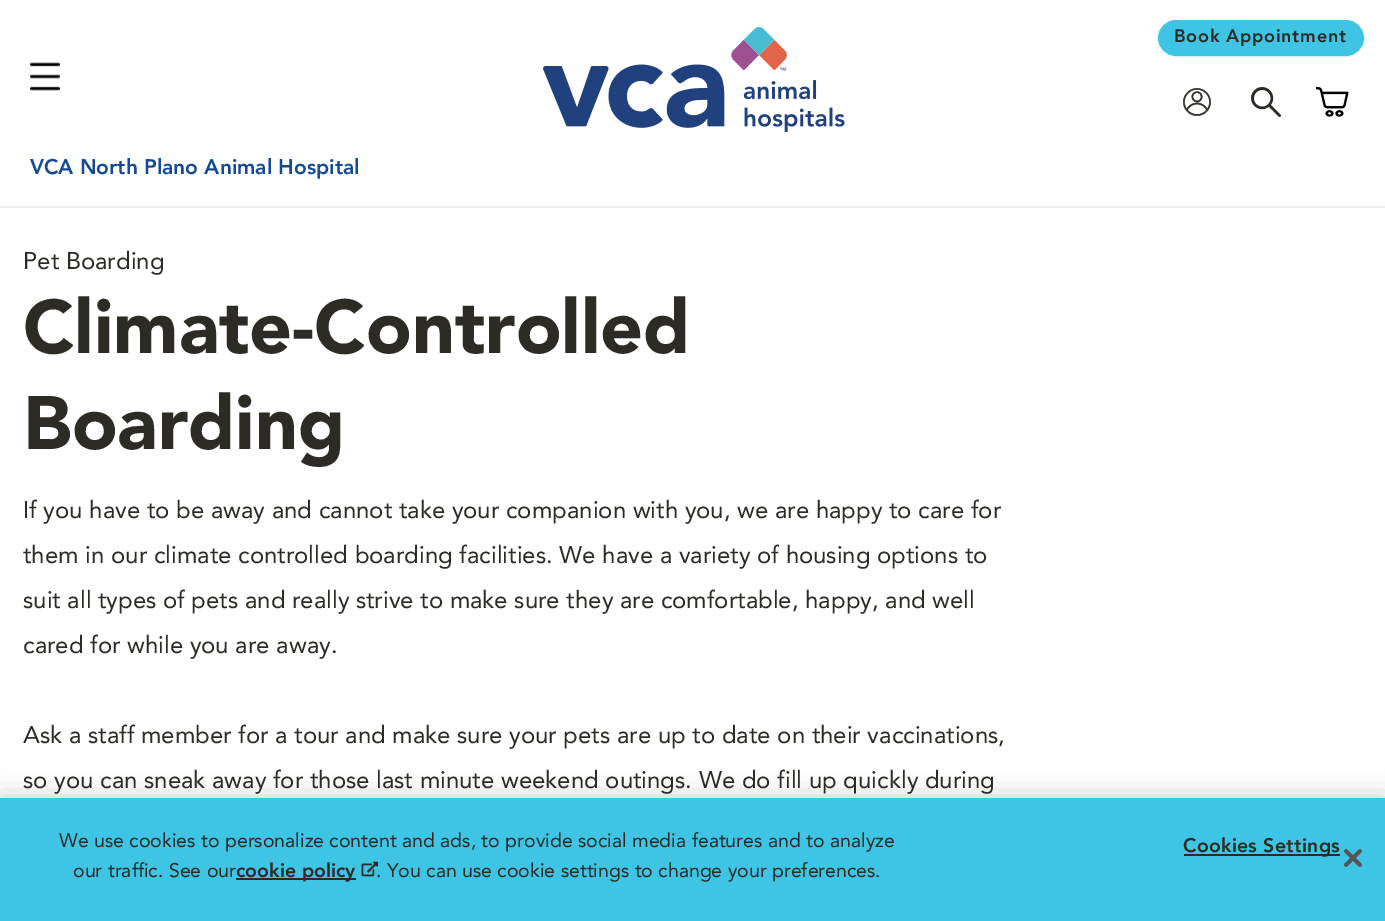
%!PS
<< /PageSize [1385 921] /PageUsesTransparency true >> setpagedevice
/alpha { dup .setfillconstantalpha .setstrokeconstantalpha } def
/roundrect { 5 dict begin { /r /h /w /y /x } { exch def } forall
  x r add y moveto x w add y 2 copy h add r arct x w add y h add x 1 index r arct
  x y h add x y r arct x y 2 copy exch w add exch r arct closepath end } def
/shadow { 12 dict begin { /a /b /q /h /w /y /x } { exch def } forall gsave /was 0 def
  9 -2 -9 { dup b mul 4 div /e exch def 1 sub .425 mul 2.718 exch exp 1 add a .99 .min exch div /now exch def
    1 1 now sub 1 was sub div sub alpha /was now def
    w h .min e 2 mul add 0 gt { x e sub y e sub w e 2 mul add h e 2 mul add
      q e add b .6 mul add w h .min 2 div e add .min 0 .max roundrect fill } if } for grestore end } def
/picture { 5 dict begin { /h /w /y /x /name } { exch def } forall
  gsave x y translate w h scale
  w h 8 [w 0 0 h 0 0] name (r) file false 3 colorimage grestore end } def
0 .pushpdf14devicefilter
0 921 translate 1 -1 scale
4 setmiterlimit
1 setgray
0 0 1385 921 rectfill
0.929 setgray
0 206 1385 2 rectfill
(img1.rgb) 543 27 302 105 picture
0.243 0.769 0.894 setrgbcolor
1159 21 204 34 17 roundrect gsave fill grestore
2 setlinewidth
stroke
/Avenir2-Black [18 0 0 -18 0 0] selectfont
0.176 0.169 0.149 setrgbcolor
1174 42 moveto 0.75 0 (Book Appointment) ashow
(img2.rgb) 1183 88 28 28 picture
(img3.rgb) 1251 87 30 30 picture
(img4.rgb) 1316 87 33 30 picture
(img5.rgb) 30 62 30 29 picture
/Avenir2-Black [21 0 0 -21 0 0] selectfont
0.086 0.286 0.58 setrgbcolor
30 174 moveto (VCA North Plano Animal Hospital) show
/Avenir-Regular [24 0 0 -24 0 0] selectfont
0.176 0.169 0.149 setrgbcolor
23 269 moveto (Pet Boarding) show
/Avenir-Black [75 0 0 -75 0 0] selectfont
23 353 moveto (Climate-Controlled) show
23 449 moveto (Boarding) show
/Avenir-Regular [24 0 0 -24 0 0] selectfont
23 518 moveto (If you have to be away and cannot take your companion with you, we are happy to care for) show
23 563 moveto (them in our climate controlled boarding facilities. We have a variety of housing options to) show
23 608 moveto (suit all types of pets and really strive to make sure they are comfortable, happy, and well) show
23 653 moveto (cared for while you are away.) show
23 743 moveto (Ask a staff member for a tour and make sure your pets are up to date on their vaccinations,) show
23 788 moveto (so you can sneak away for those last minute weekend outings. We do fill up quickly during) show
0 setgray
0 798 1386 123 0 13.5 0.2 shadow
0.243 0.769 0.894 setrgbcolor
0 798 1385 123 rectfill
/Avenir-Regular [19.5 0 0 -19.5 0 0] selectfont
0.176 0.169 0.149 setrgbcolor
59 847 moveto (We use cookies to personalize content and ads, to provide social media features and to analyze) show
73 877 moveto (our traffic. See our) show
236 878 120 2 rectfill
/Avenir2-Black [19.5 0 0 -19.5 0 0] selectfont
236 877 moveto (cookie policy) show
(img6.rgb) 361 861 17 16 picture
/Avenir-Regular [19.5 0 0 -19.5 0 0] selectfont
376 877 moveto (. You can use cookie settings to change your preferences.) show
1184 854 156 2 rectfill
/Avenir2-Black [19.5 0 0 -19.5 0 0] selectfont
1183 852 moveto 0.25 0 (Cookies Settings) ashow
(img7.rgb) 1344 849 18 18 picture
.poppdf14devicefilter showpage
